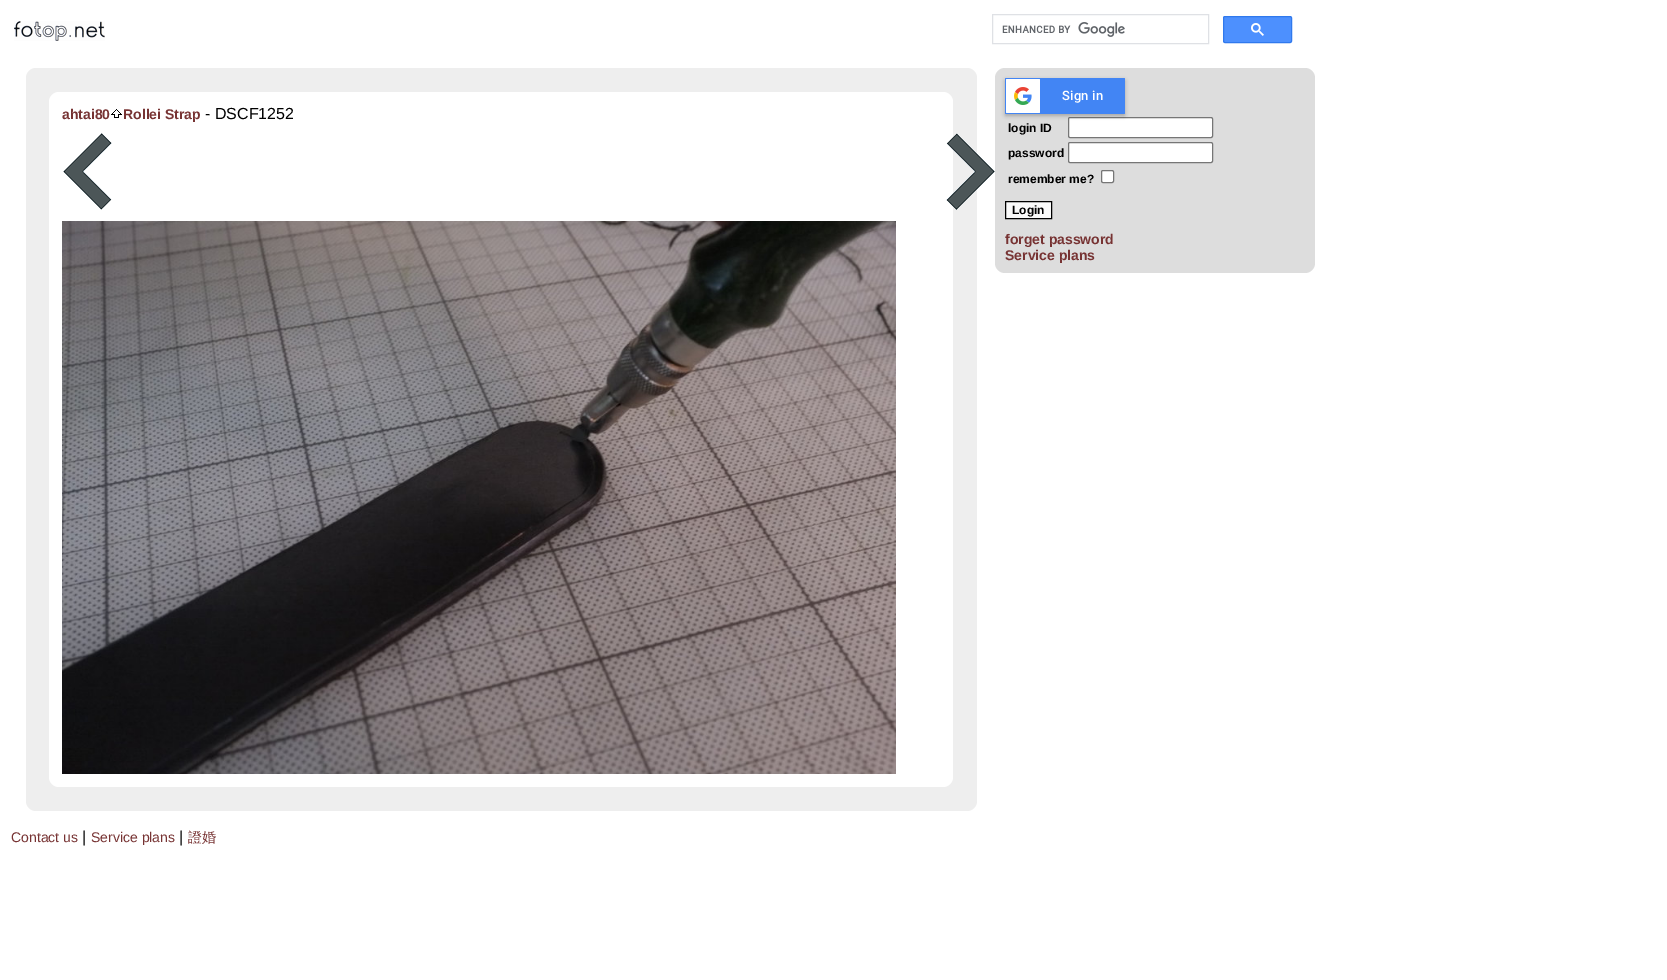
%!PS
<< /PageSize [1667 980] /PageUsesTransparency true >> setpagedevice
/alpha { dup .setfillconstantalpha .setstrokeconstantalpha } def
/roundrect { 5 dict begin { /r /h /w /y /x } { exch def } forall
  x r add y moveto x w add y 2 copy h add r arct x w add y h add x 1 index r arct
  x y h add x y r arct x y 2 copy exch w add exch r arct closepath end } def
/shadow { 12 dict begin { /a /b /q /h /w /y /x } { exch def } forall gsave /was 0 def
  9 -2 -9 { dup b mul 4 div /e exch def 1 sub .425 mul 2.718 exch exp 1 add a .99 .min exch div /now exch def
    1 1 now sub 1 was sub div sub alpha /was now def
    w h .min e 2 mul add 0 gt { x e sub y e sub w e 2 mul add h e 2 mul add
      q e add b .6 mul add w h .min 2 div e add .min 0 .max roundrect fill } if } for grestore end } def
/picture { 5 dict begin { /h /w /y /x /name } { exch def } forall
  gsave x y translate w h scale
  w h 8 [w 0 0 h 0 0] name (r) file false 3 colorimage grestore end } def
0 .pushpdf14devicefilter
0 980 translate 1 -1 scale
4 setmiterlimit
1 setgray
0 0 1667 980 rectfill
(img1.rgb) 14 21 91 20 picture
0.875 0.882 0.898 setrgbcolor
992.5 14.5 216 29 rectstroke
(img2.rgb) 1002 22 123 15 picture
0.302 0.565 0.996 setrgbcolor
1223.5 16.5 68 26 1.5 roundrect gsave fill grestore
0.188 0.475 0.929 setrgbcolor
stroke
(img3.rgb) 1251 23 13 13 picture
0.933 setgray
26 68 951 743 10 roundrect fill
1 setgray
49 92 904 695 10 roundrect fill
/LiberationSans-Bold [14 0 0 -14 0 0] selectfont
0.467 0.2 0.2 setrgbcolor
62 119 moveto (ahtai80) show
(img4.rgb) 111 109 11 9 picture
123 119 moveto (Rollei Strap) show
/LiberationSans-Regular [16 0 0 -16 0 0] selectfont
0 setgray
205 119 moveto (- DSCF1252) show
(img5.rgb) 63 133 49 77 picture
(img6.rgb) 946 133 49 77 picture
(img7.rgb) 62 221 834 553 picture
0.867 setgray
995 68 320 205 10 roundrect fill
1 setgray
1068.5 117.5 144 20 1.5 roundrect gsave fill grestore
0.463 setgray
stroke
0 setgray
1005 80 120 36 1 2 0.25 shadow
0.259 0.522 0.957 setrgbcolor
1005 78 120 36 1 roundrect fill
1 setgray
1006 79 34 34 1 roundrect fill
(img8.rgb) 1014 87 18 18 picture
/Roboto-Medium [13 0 0 -13 0 0] selectfont
1062 100 moveto 0.25 0 (Sign in) ashow
/LiberationSans-Bold [12 0 0 -12 0 0] selectfont
0 setgray
1008 132 moveto (login ID) show
1008 157 moveto (password) show
1 setgray
1068.5 142.5 144 20 1.5 roundrect gsave fill grestore
0.463 setgray
stroke
0 setgray
1008 183 moveto (remember me?) show
1 setgray
1101.5 170.5 12 12 1.5 roundrect gsave fill grestore
0.463 setgray
stroke
0.98 setgray
newpath 1005.5 201.5 moveto 1051.5 201.5 lineto 1051.5 218.5 lineto 1005.5 218.5 lineto closepath gsave fill grestore
0 setgray
stroke
1012 214 moveto (Login) show
/LiberationSans-Bold [14 0 0 -14 0 0] selectfont
0.467 0.2 0.2 setrgbcolor
1005 244 moveto (forget password) show
1005 260 moveto (Service plans) show
/LiberationSans-Regular [14 0 0 -14 0 0] selectfont
11 842 moveto (Contact us) show
/LiberationSans-Regular [16 0 0 -16 0 0] selectfont
0 setgray
82 842 moveto (|) show
/LiberationSans-Regular [14 0 0 -14 0 0] selectfont
0.467 0.2 0.2 setrgbcolor
91 842 moveto (Service plans) show
/LiberationSans-Regular [16 0 0 -16 0 0] selectfont
0 setgray
179 842 moveto (|) show
/WenQuanYiZenHei-Medium [14 0 0 -14 0 0] selectfont
0.467 0.2 0.2 setrgbcolor
188 842 moveto (證婚) show
.poppdf14devicefilter showpage
